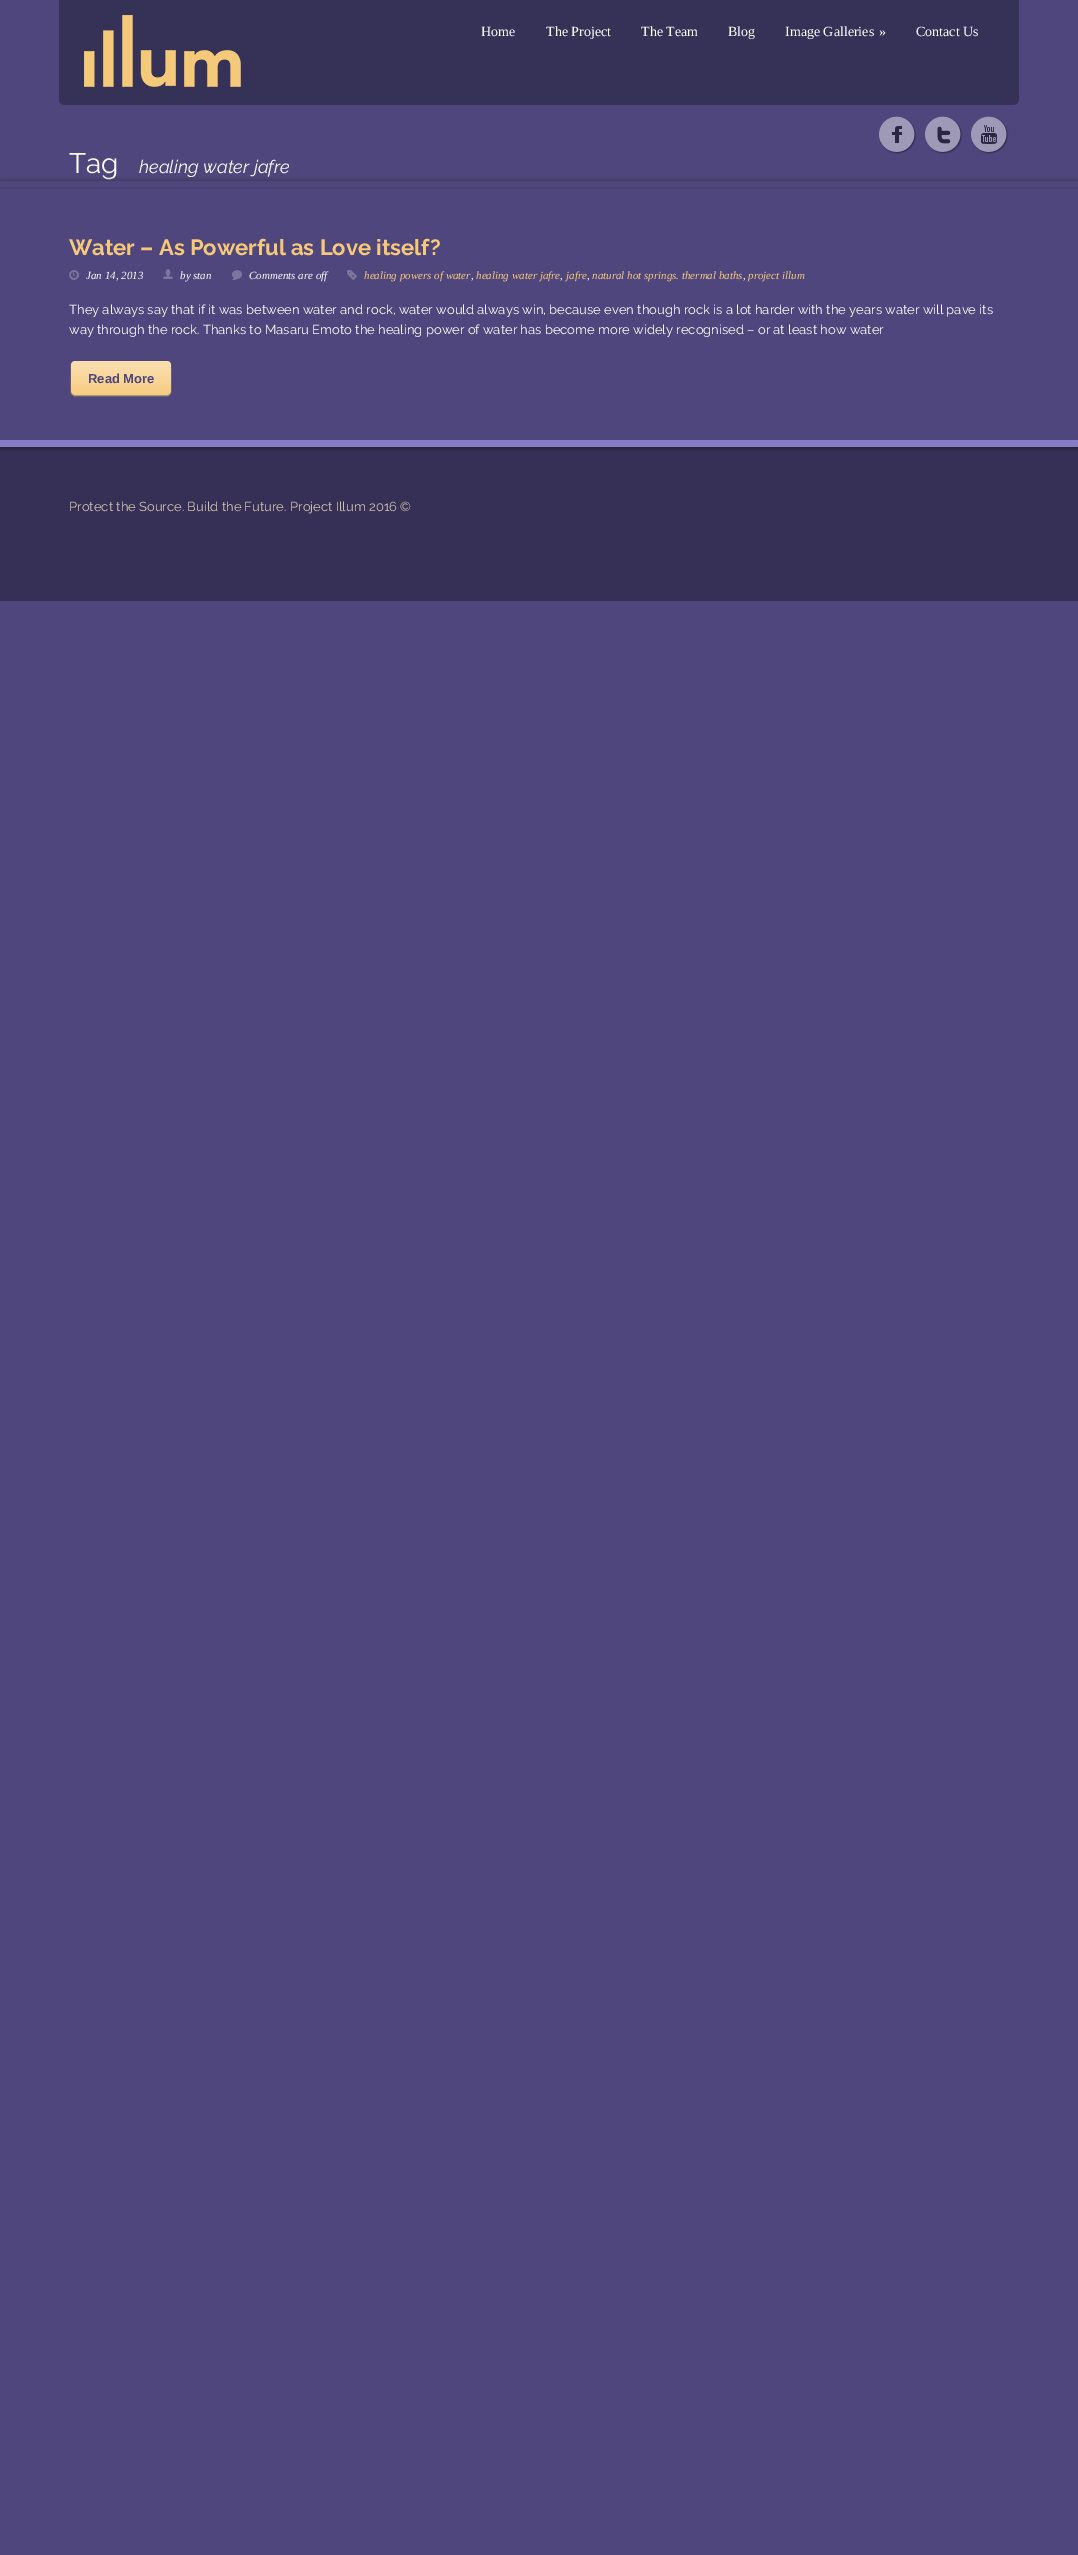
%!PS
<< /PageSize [1078 2555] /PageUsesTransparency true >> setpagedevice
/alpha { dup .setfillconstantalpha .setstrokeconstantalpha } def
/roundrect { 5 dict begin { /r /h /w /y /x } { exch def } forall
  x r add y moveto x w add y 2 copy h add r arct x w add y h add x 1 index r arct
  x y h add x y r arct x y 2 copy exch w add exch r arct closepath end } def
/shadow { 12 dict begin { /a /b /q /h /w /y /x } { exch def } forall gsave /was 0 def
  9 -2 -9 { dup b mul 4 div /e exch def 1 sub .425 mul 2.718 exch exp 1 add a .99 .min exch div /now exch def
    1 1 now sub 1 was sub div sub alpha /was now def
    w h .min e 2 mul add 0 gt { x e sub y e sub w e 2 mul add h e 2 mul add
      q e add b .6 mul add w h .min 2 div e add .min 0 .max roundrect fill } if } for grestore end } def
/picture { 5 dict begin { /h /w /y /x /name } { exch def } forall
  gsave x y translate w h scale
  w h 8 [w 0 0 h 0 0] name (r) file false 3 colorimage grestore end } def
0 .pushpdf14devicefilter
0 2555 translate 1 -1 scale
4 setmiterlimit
0.306 0.275 0.486 setrgbcolor
0 0 1078 2555 rectfill
(img1.rgb) 59 0 960 105 picture
(img2.rgb) 84 15 157 72 picture
/LiberationSerif-Regular [14 0 0 -14 0 0] selectfont
1 setgray
481 36 moveto (Home) show
546 36 moveto (The Project) show
641 36 moveto (The Team) show
728 36 moveto (Blog) show
785 36 moveto (Image Galleries) show
879 36 moveto (») show
916 36 moveto (Contact Us) show
(img3.rgb) 879 116 38 38 picture
(img4.rgb) 925 116 38 38 picture
(img5.rgb) 971 116 38 38 picture
/Raleway-Regular [28 0 0 -28 0 0] selectfont
69 173 moveto (Tag) show
/Raleway-Italic [18 0 0 -18 0 0] selectfont
139 173 moveto (healing water jafre) show
gsave
newpath 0 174 moveto 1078 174 lineto 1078 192 lineto 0 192 lineto closepath 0 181 moveto 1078 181 lineto 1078 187 lineto 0 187 lineto closepath eoclip newpath
0.2 setgray
1 181 1076 4 0 2 1 shadow
grestore
/Raleway-Bold [22 0 0 -22 0 0] selectfont
0.965 0.788 0.478 setrgbcolor
69 255 moveto (Water – As Powerful as Love itself?) show
(img6.rgb) 69 270 10 10 picture
/LiberationSerif-Italic [11 0 0 -11 0 0] selectfont
1 setgray
86 279 moveto (Jan 14, 2013) show
(img7.rgb) 163 269 10 10 picture
180 279 moveto (by stan) show
(img8.rgb) 232 270 10 10 picture
249 279 moveto (Comments are off) show
(img9.rgb) 347 270 10 10 picture
0.965 0.788 0.478 setrgbcolor
364 279 moveto (healing powers of water) show
1 setgray
471 279 moveto (,) show
0.965 0.788 0.478 setrgbcolor
476 279 moveto (healing water jafre) show
1 setgray
560 279 moveto (,) show
0.965 0.788 0.478 setrgbcolor
566 279 moveto (jafre) show
1 setgray
587 279 moveto (,) show
0.965 0.788 0.478 setrgbcolor
592 279 moveto (natural hot springs. thermal baths) show
1 setgray
743 279 moveto (,) show
0.965 0.788 0.478 setrgbcolor
748 279 moveto (project illum) show
/Raleway-Regular [13 0 0 -13 0 0] selectfont
1 setgray
69 314 moveto (They always say that if it was between water and rock, water would always win, because even though rock is a lot harder with the years water will pave its) show
69 334 moveto (way through the rock. Thanks to Masaru Emoto the healing power of water has become more widely recognised – or at least how water) show
0.714 0.635 0.451 setrgbcolor
71 362 100 34 4 0.5 1 shadow
0.965 0.788 0.478 setrgbcolor
71 361 100 34 4 roundrect fill
(img10.rgb) 71 361 100 34 picture
/LiberationSans-Bold [13 0 0 -13 0 0] selectfont
0.306 0.275 0.486 setrgbcolor
88 383 moveto (Read More) show
0.212 0.188 0.337 setrgbcolor
0 447 1078 154 rectfill
gsave
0 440 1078 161 rectclip
0.067 setgray
0 440 1078 7 0 3 1 shadow
grestore
0.525 0.482 0.776 setrgbcolor
0 440 1078 7 rectfill
/Raleway-Regular [13 0 0 -13 0 0] selectfont
0.812 0.761 0.682 setrgbcolor
69 511 moveto (Protect the Source. Build the Future. Project Illum 2016 ©) show
.poppdf14devicefilter showpage
